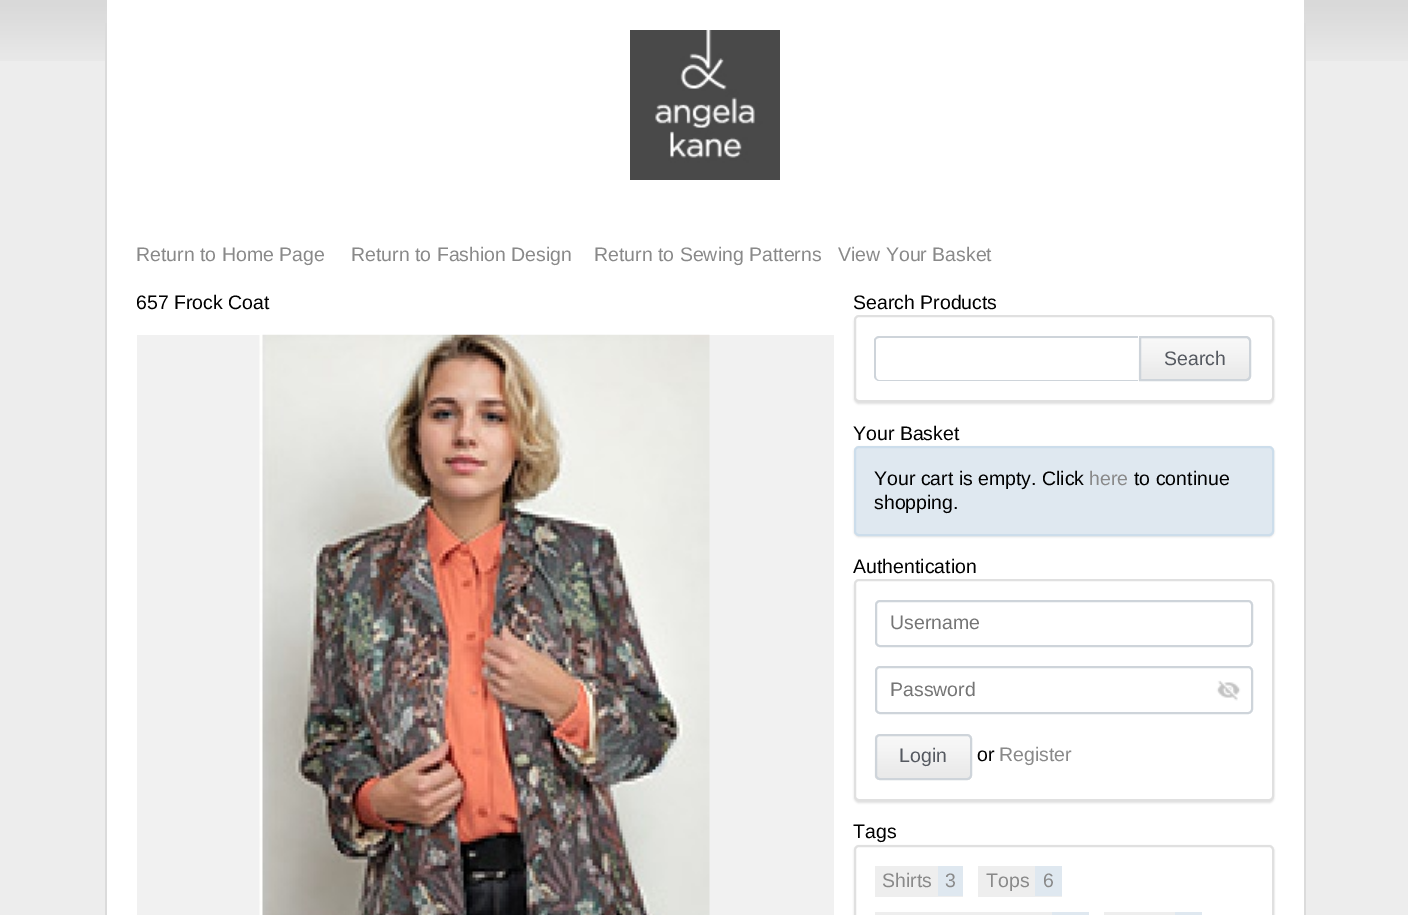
%!PS
<< /PageSize [1408 915] /PageUsesTransparency true >> setpagedevice
/alpha { dup .setfillconstantalpha .setstrokeconstantalpha } def
/roundrect { 5 dict begin { /r /h /w /y /x } { exch def } forall
  x r add y moveto x w add y 2 copy h add r arct x w add y h add x 1 index r arct
  x y h add x y r arct x y 2 copy exch w add exch r arct closepath end } def
/shadow { 12 dict begin { /a /b /q /h /w /y /x } { exch def } forall gsave /was 0 def
  9 -2 -9 { dup b mul 4 div /e exch def 1 sub .425 mul 2.718 exch exp 1 add a .99 .min exch div /now exch def
    1 1 now sub 1 was sub div sub alpha /was now def
    w h .min e 2 mul add 0 gt { x e sub y e sub w e 2 mul add h e 2 mul add
      q e add b .6 mul add w h .min 2 div e add .min 0 .max roundrect fill } if } for grestore end } def
/picture { 5 dict begin { /h /w /y /x /name } { exch def } forall
  gsave x y translate w h scale
  w h 8 [w 0 0 h 0 0] name (r) file false 3 colorimage grestore end } def
0 .pushpdf14devicefilter
0 915 translate 1 -1 scale
4 setmiterlimit
0.929 setgray
0 0 1408 915 rectfill
(img1.rgb) 0 0 1408 61 picture
1 setgray
107 0 1197 915 rectfill
0.859 setgray
1304 23 2 892 rectfill
105 23 2 892 rectfill
(img2.rgb) 630 30 150 150 picture
/LiberationSans-Regular [19.5 0 0 -19.5 0 0] selectfont
0.537 setgray
136 261 moveto (Return to Home Page) show
351 261 moveto (Return to Fashion Design) show
594 261 moveto (Return to Sewing Patterns) show
838 261 moveto (View Your Basket) show
gsave
137 291 697 24 rectclip
0 setgray
136 309 moveto (657 Frock Coat) show
grestore
0.945 setgray
137 335 697 580 rectfill
(img3.rgb) 259 334 451 581 picture
0 setgray
853 309 moveto (Search Products) show
0.878 setgray
854 317 420 87 5 1 1 shadow
1 setgray
855 316 418 85 4 roundrect gsave fill grestore
0.878 setgray
2 setlinewidth
stroke
0.808 0.831 0.855 setrgbcolor
newpath 879 336 moveto 1138 336 lineto 1138 381 lineto 879 381 lineto 877 381 874 379 874 376 curveto 874 340 lineto 874 338 877 336 879 336 curveto closepath 879 338 moveto 1138 338 lineto 1138 380 lineto 879 380 lineto 877 380 876 378 876 376 curveto 876 340 lineto 876 339 877 338 879 338 curveto closepath eofill
(img4.rgb) 1138 337 113 44 picture
newpath 1140 337 moveto 1246 337 lineto 1248 337 1250 339 1250 341 curveto 1250 376 lineto 1250 378 1248 380 1246 380 curveto 1140 380 lineto closepath stroke
0.333 0.349 0.376 setrgbcolor
1164 365 moveto (Search) show
0 setgray
853 440 moveto (Your Basket) show
0.878 setgray
854 447 420 90 5 1 1 shadow
0.875 0.91 0.941 setrgbcolor
855 447 418 88 4 roundrect gsave fill grestore
0.8 0.867 0.922 setrgbcolor
stroke
0 setgray
874 485 moveto (Your cart is empty. Click) show
0.537 setgray
1089 485 moveto (here) show
0 setgray
1134 485 moveto (to continue) show
874 509 moveto (shopping.) show
853 573 moveto (Authentication) show
0.878 setgray
854 581 420 222 5 1 1 shadow
1 setgray
855 580 418 220 4 roundrect gsave fill grestore
0.878 setgray
stroke
0.808 0.831 0.855 setrgbcolor
876 601 376 45 4 roundrect stroke
0.459 setgray
890 629 moveto (Username) show
0.808 0.831 0.855 setrgbcolor
876 667 376 46 4 roundrect stroke
0.459 setgray
890 696 moveto (Password) show
(img5.rgb) 1216 680 25 21 picture
(img6.rgb) 874 735 98 45 picture
0.808 0.831 0.855 setrgbcolor
876 735 95 44 4 roundrect stroke
0.333 0.349 0.376 setrgbcolor
899 762 moveto (Login) show
0 setgray
977 761 moveto (or) show
0.537 setgray
999 761 moveto (Register) show
0.878 setgray
854 846 420 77 5 1 1 shadow
0 setgray
853 838 moveto (Tags) show
1 setgray
855 846 418 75 4 roundrect gsave fill grestore
0.878 setgray
stroke
0.933 setgray
875 866 88 31 rectfill
0.537 setgray
882 887 moveto (Shirts) show
0.875 0.91 0.941 setrgbcolor
938 866 25 30 rectfill
0.537 setgray
945 887 moveto (3) show
0.933 setgray
978 866 84 31 rectfill
0.537 setgray
986 887 moveto (Tops) show
0.875 0.91 0.941 setrgbcolor
1035 866 27 30 rectfill
0.537 setgray
1043 887 moveto (6) show
0.933 setgray
875 912 177 3 rectfill
0.875 0.91 0.941 setrgbcolor
1052 912 37 3 rectfill
0.933 setgray
1104 912 71 3 rectfill
0.875 0.91 0.941 setrgbcolor
1175 912 27 3 rectfill
.poppdf14devicefilter showpage
